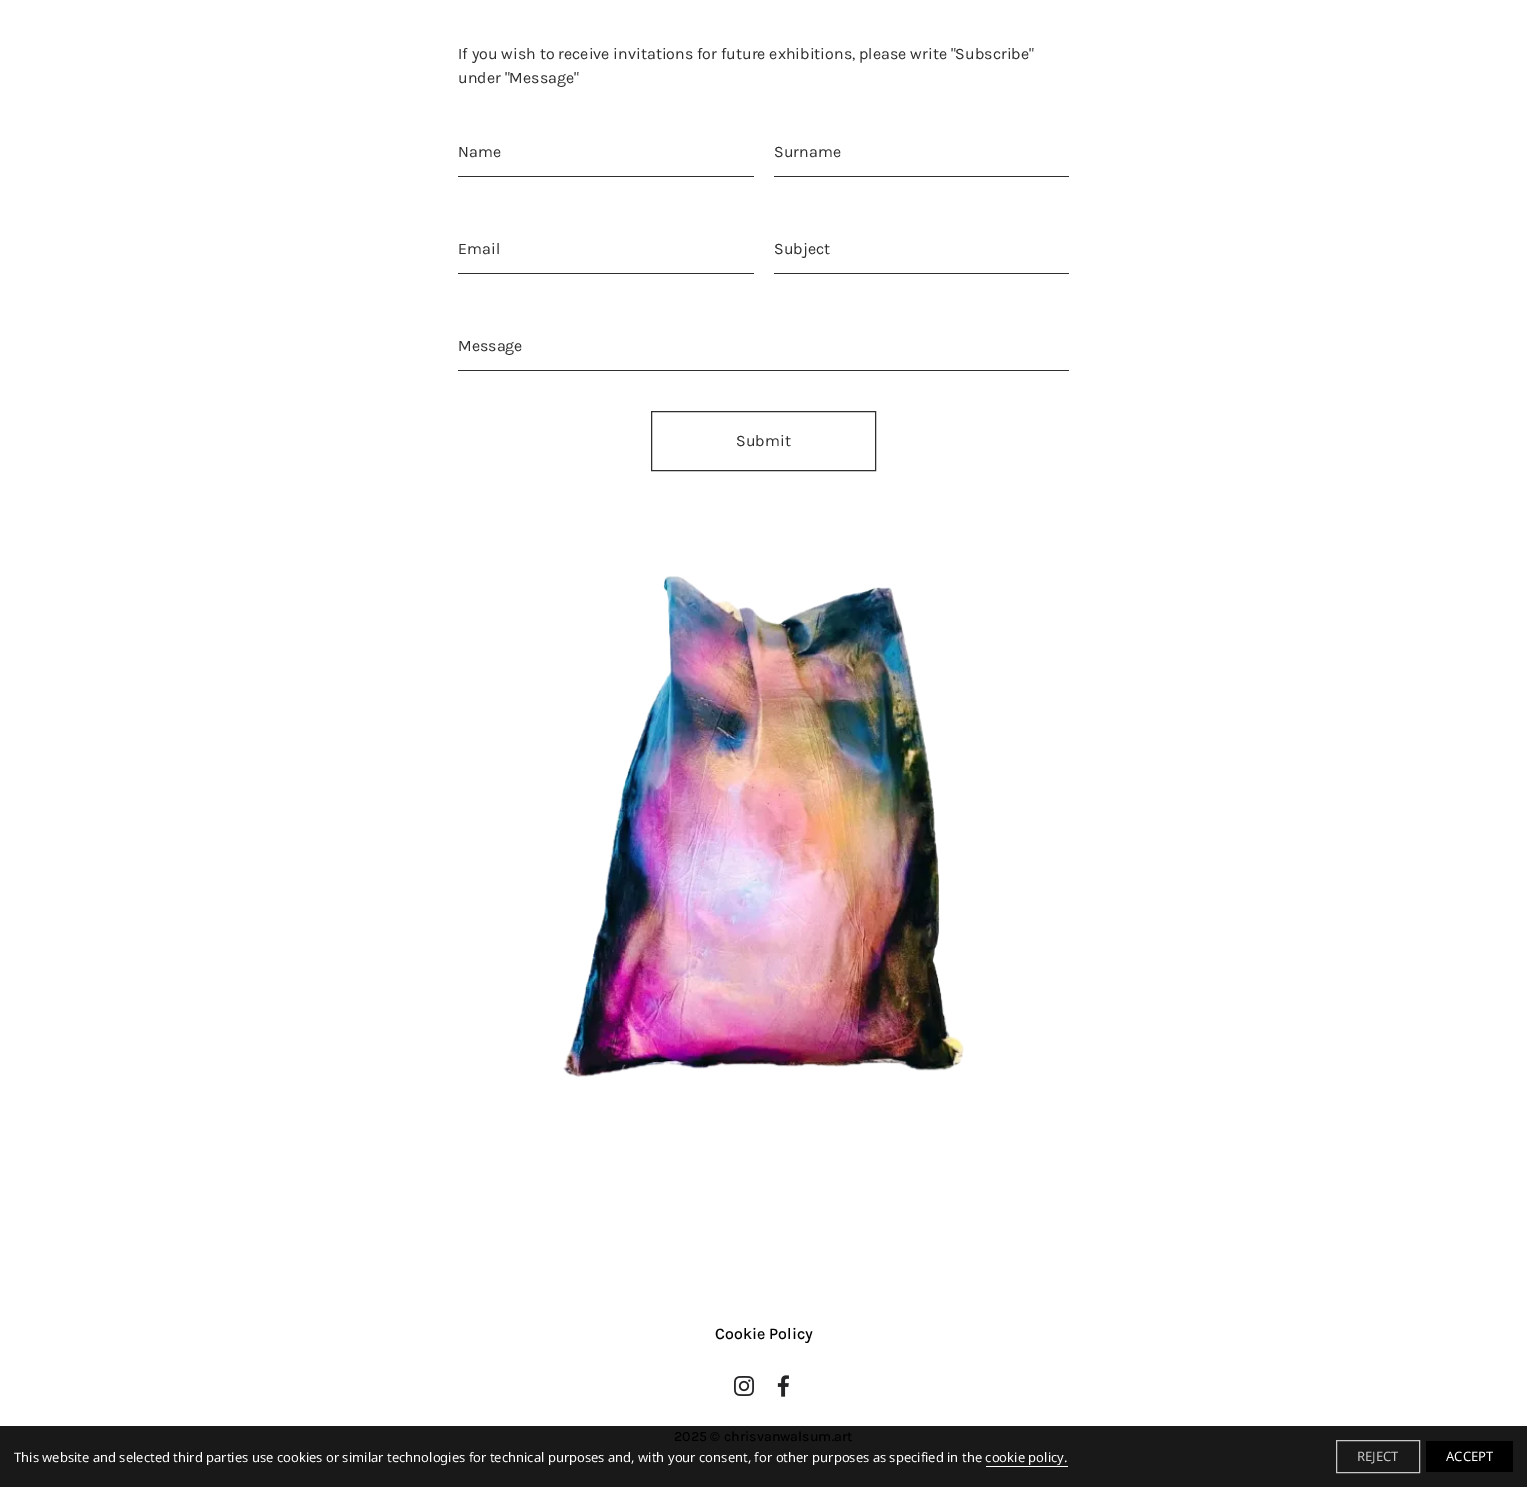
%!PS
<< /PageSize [1527 1487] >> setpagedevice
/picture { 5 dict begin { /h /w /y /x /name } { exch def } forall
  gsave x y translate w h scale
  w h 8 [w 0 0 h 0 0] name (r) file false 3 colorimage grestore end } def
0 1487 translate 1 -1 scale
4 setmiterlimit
1 setgray
0 0 1527 1487 rectfill
0.098 setgray
0 1426 1527 61 rectfill
/Karla-Regular [16 0 0 -16 0 0] selectfont
0.184 setgray
458 59 moveto (If you wish to receive invitations for future exhibitions, please write "Subscribe") show
458 83 moveto (under "Message") show
458 176 296 1 rectfill
458 157 moveto (Name) show
774 176 295 1 rectfill
774 157 moveto (Surname) show
458 273 296 1 rectfill
458 254 moveto (Email) show
774 273 295 1 rectfill
774 254 moveto (Subject) show
458 370 611 1 rectfill
458 351 moveto (Message) show
651.5 411.5 224 59 rectstroke
736 446 moveto (Submit) show
(img1.rgb) 563 576 401 501 picture
/Karla-Medium [16 0 0 -16 0 0] selectfont
0 setgray
715 1339 moveto (Cookie Policy) show
(img2.rgb) 734 1376 20 20 picture
(img3.rgb) 777 1375 12 22 picture
/Karla-Medium [14 0 0 -14 0 0] selectfont
674 1441 moveto (2025 © chrisvanwalsum.art) show
/NotoSans-Regular [13 0 0 -13 0 0] selectfont
1 setgray
14 1462 moveto (This website and selected third parties use cookies or similar technologies for technical purposes and, with your consent, for other purposes as specified in the cookie policy.) show
986 1466 82 1 rectfill
0.784 setgray
1336.5 1440.5 83 32 rectstroke
1357 1461 moveto (REJECT) show
0 setgray
1426 1441 87 31 rectfill
1 setgray
1446 1461 moveto (ACCEPT) show
showpage
